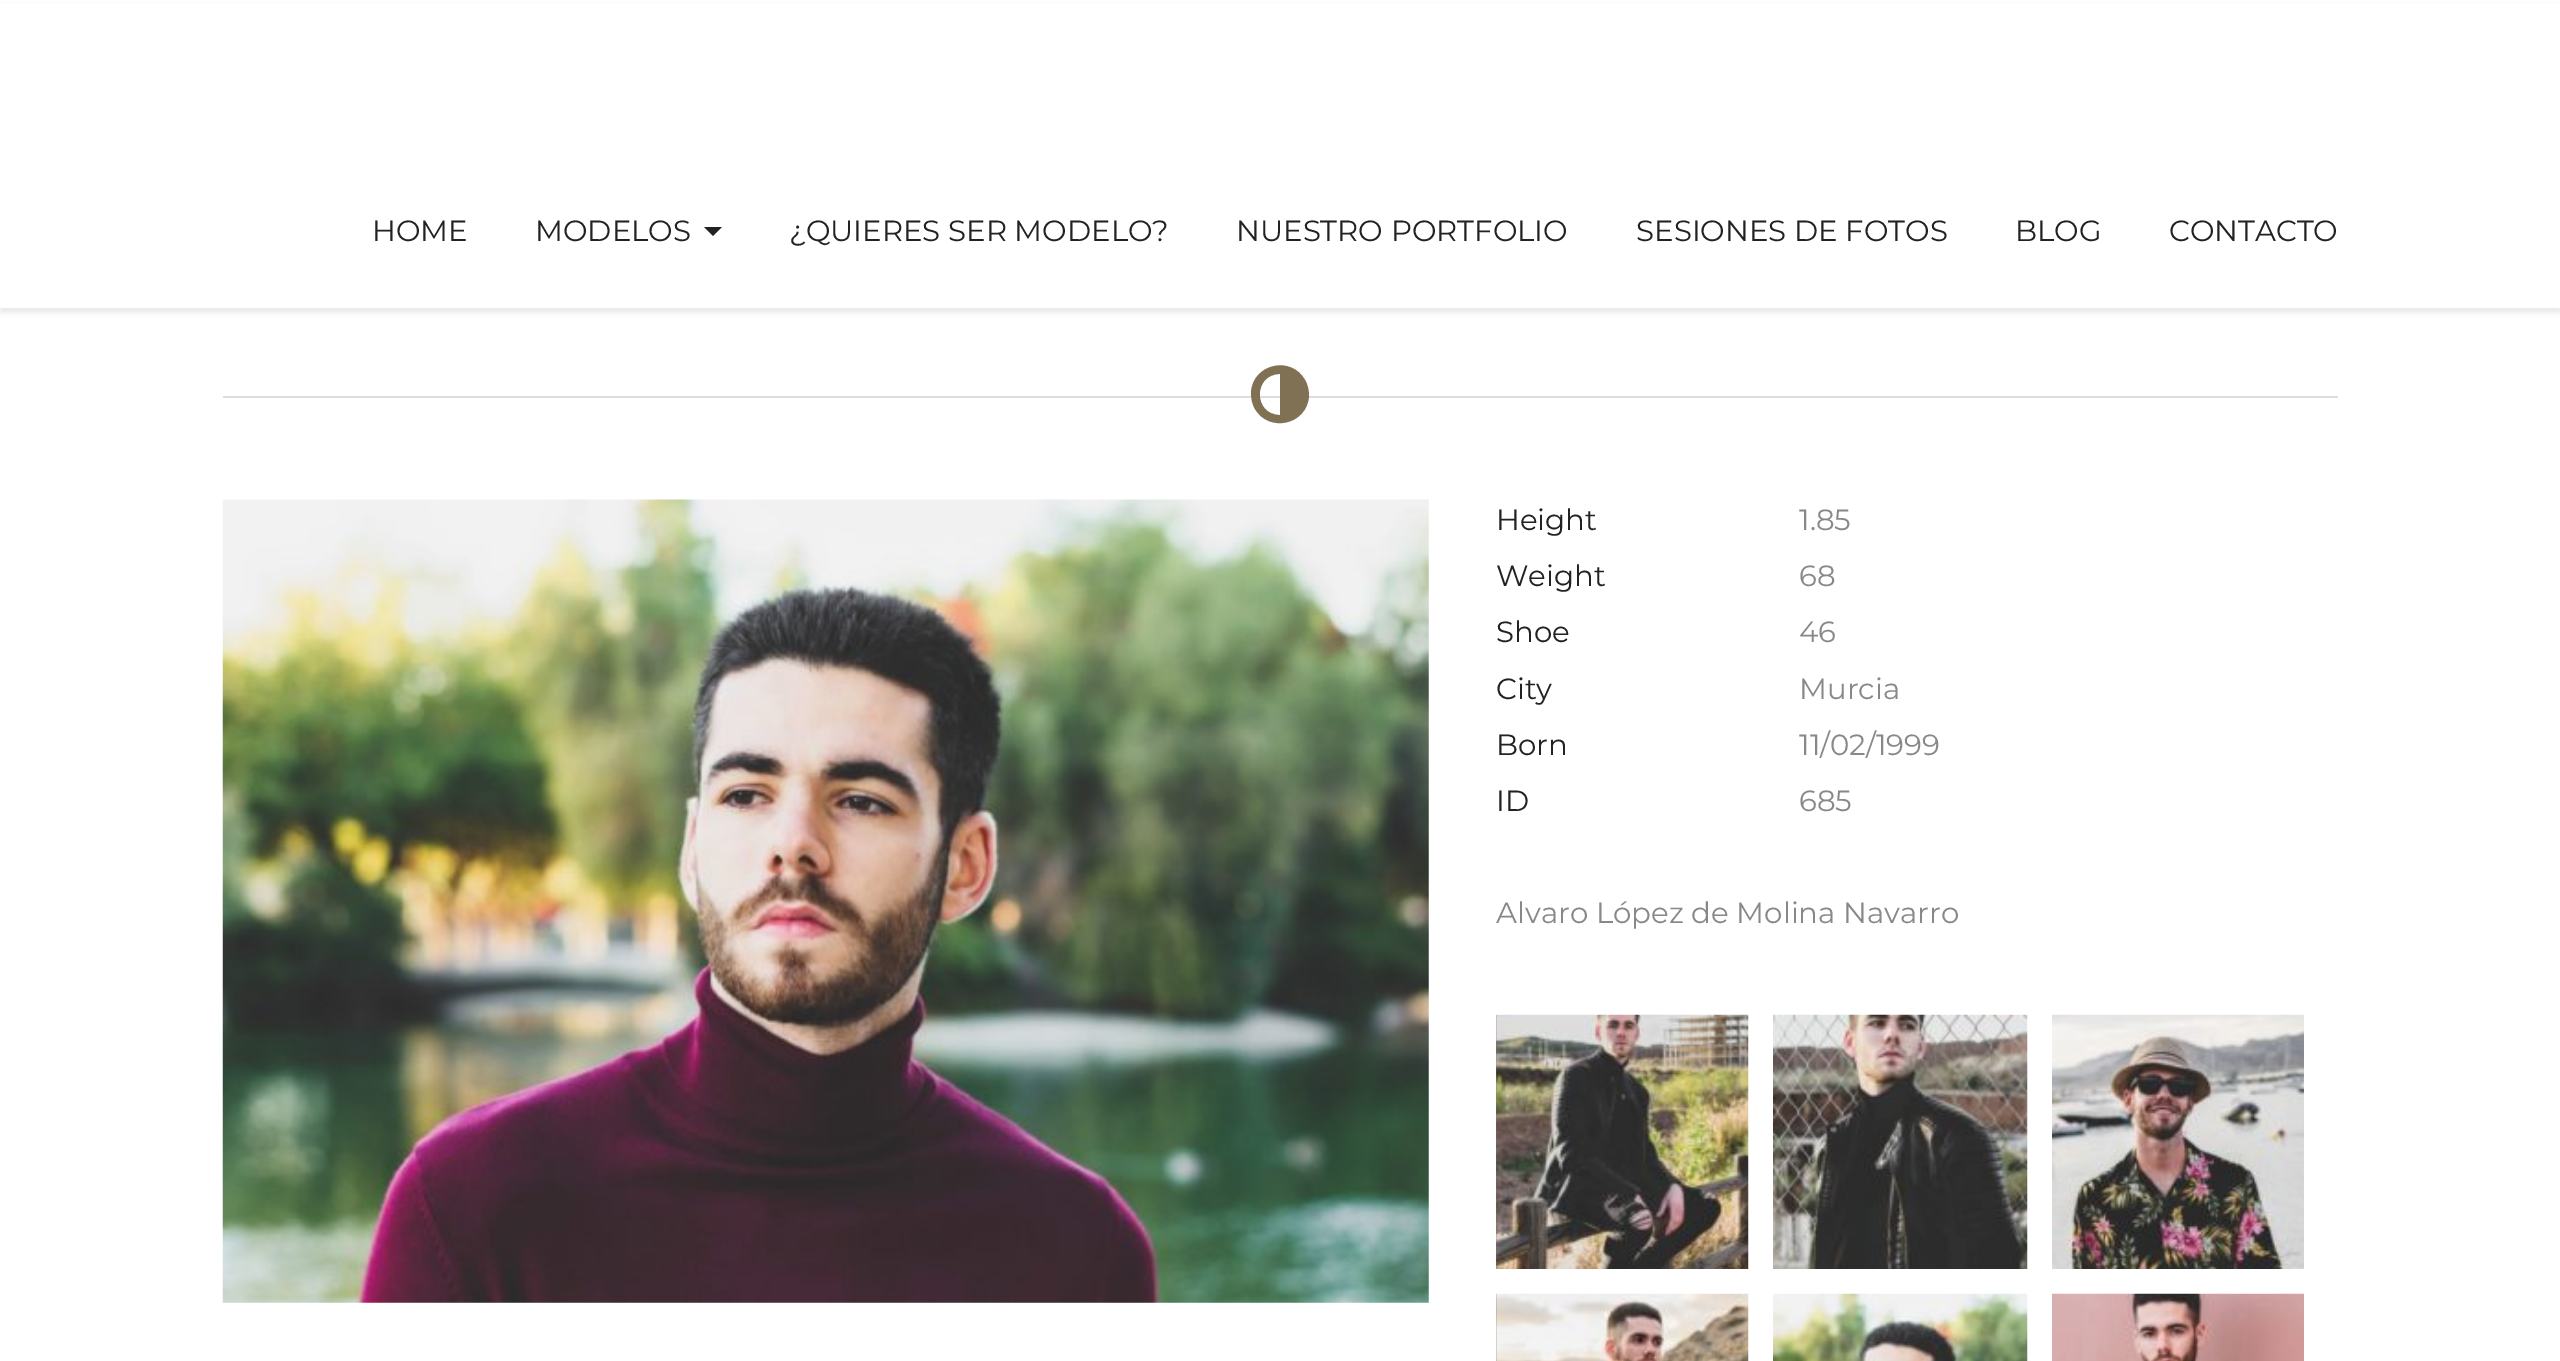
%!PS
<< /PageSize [2560 1361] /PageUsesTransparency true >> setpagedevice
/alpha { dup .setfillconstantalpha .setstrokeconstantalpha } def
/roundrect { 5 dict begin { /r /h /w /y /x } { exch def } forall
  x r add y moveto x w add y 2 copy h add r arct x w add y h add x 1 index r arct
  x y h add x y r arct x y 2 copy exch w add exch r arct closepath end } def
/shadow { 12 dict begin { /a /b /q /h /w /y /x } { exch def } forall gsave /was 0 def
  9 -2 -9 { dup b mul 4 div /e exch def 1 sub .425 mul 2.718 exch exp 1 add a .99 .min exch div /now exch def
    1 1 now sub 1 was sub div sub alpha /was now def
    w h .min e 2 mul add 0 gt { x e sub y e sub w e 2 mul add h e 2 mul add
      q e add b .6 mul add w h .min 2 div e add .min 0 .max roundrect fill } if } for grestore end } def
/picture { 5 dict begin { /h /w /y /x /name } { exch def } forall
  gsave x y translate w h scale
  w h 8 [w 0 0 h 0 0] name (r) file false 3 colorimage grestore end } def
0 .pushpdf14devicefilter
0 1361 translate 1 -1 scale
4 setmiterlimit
1 setgray
0 0 2560 1361 rectfill
0 setgray
0 5 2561 308 0 2 0.07 shadow
1 setgray
0 3 2560 305 rectfill
/Montserrat-Thin [29.25 0 0 -29.25 0 0] selectfont
0.133 setgray
372 241 moveto (HOME) show
535 241 moveto (MODELOS) show
newpath 704 227 moveto 722 227 lineto 713 236 lineto closepath fill
789 241 moveto (¿QUIERES SER MODELO?) show
1236 241 moveto (NUESTRO PORTFOLIO) show
1636 241 moveto (SESIONES DE FOTOS) show
2015 241 moveto (BLOG) show
2169 241 moveto (CONTACTO) show
0.867 setgray
223 396 2115 2 rectfill
0.502 0.443 0.329 setrgbcolor
newpath 1280 415 moveto 1280 374 lineto 1253 374 1253 415 1280 415 curveto closepath 1305 380 moveto 1308 385 1309 391 1309 396 curveto 1307 425 1269 433 1255 409 curveto 1252 404 1251 398 1251 392 curveto 1253 364 1291 355 1305 380 curveto closepath fill
(img1.rgb) 222 499 1207 804 picture
0.133 setgray
1496 530 moveto (Height) show
0.533 setgray
1799 530 moveto (1.85) show
0.133 setgray
1496 586 moveto (Weight) show
0.533 setgray
1799 586 moveto (68) show
0.133 setgray
1496 642 moveto (Shoe) show
0.533 setgray
1799 642 moveto (46) show
0.133 setgray
1496 699 moveto (City) show
0.533 setgray
1799 699 moveto (Murcia) show
0.133 setgray
1496 755 moveto (Born) show
0.533 setgray
1799 755 moveto (11/02/1999) show
0.133 setgray
1496 811 moveto (ID) show
0.533 setgray
1799 811 moveto (685) show
1496 923 moveto (Alvaro López de Molina Navarro) show
(img2.rgb) 1496 1014 253 255 picture
(img3.rgb) 1773 1014 255 255 picture
(img4.rgb) 2052 1014 252 255 picture
(img5.rgb) 1496 1293 253 68 picture
(img6.rgb) 1773 1293 255 68 picture
(img7.rgb) 2052 1293 252 68 picture
.poppdf14devicefilter showpage
